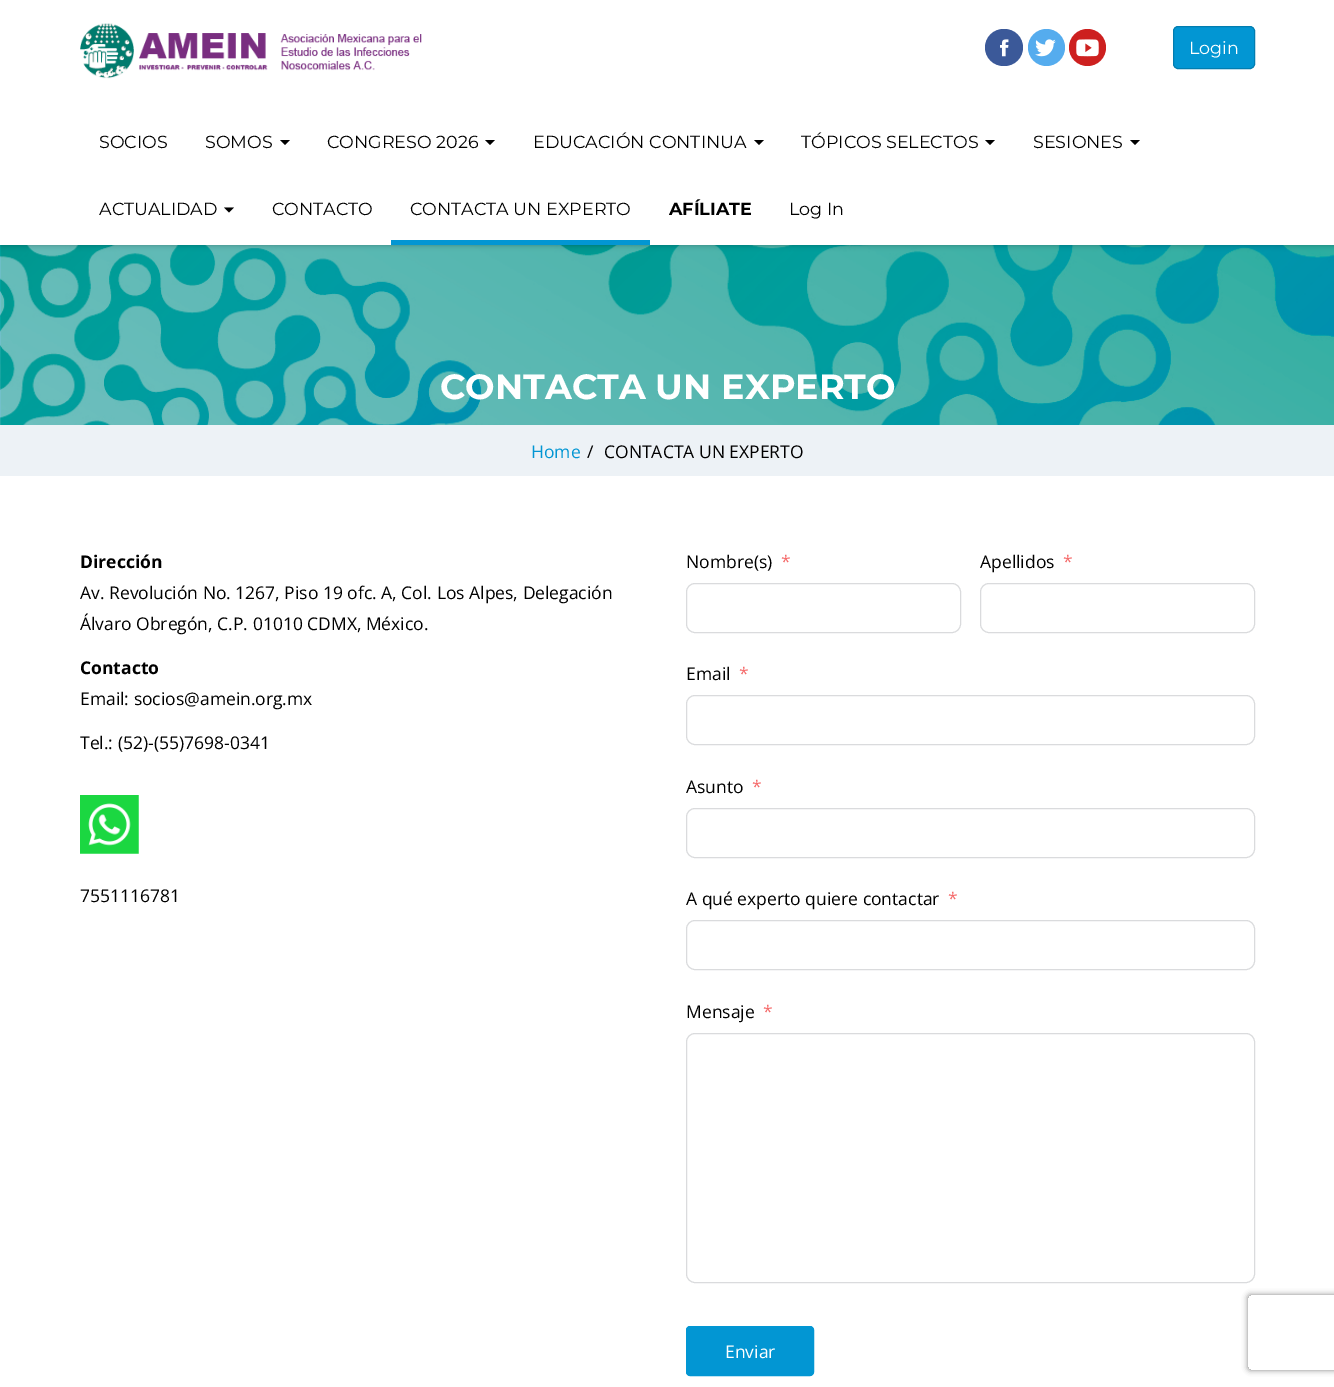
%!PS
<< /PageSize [1334 1387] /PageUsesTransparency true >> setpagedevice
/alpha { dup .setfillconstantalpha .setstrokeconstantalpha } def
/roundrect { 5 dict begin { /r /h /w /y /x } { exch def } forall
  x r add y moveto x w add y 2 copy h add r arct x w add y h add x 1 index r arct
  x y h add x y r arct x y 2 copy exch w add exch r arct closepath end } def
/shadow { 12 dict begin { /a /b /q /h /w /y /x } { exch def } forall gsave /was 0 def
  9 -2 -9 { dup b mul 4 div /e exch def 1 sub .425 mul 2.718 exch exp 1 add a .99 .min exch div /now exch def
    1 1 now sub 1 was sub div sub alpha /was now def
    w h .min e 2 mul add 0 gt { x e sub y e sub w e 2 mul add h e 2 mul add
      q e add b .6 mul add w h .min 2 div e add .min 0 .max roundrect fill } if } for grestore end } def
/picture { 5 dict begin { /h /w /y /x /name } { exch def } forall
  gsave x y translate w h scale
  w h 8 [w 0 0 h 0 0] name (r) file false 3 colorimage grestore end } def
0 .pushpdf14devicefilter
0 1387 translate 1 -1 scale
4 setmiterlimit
1 setgray
0 0 1334 1387 rectfill
(img5.rgb) 0 245 1334 180 picture
0 setgray
1 0 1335 245 0 3 0.3 shadow
1 setgray
0 0 1334 245 rectfill
(img1.rgb) 80 23 342 56 picture
0.231 0.349 0.6 setrgbcolor
985 29 38 37 18.5 roundrect fill
(img2.rgb) 1000 39 9 18 picture
0.333 0.675 0.933 setrgbcolor
newpath 1046.5 47.5 18.5 0 360 arc closepath fill
(img3.rgb) 1035 39 21 18 picture
0.804 0.125 0.122 setrgbcolor
newpath 1087.5 47.5 18.5 0 360 arc closepath fill
(img4.rgb) 1076 39 23 18 picture
0.008 0.588 0.827 setrgbcolor
1173.5 26.5 81 42 4.5 roundrect gsave fill grestore
0.008 0.49 0.69 setrgbcolor
stroke
/Montserrat-Regular [17.5 0 0 -17.5 0 0] selectfont
1 setgray
1189 54 moveto (Login) show
0 setgray
99 148 moveto (SOCIOS) show
205 148 moveto (SOMOS) show
newpath 280 140 moveto 290 140 lineto 285 145 lineto closepath fill
327 148 moveto (CONGRESO 2026) show
newpath 485 140 moveto 495 140 lineto 490 145 lineto closepath fill
533 148 moveto (EDUCACIÓN CONTINUA) show
newpath 754 140 moveto 764 140 lineto 759 145 lineto closepath fill
801 148 moveto (TÓPICOS SELECTOS) show
newpath 985 140 moveto 995 140 lineto 990 145 lineto closepath fill
1033 148 moveto (SESIONES) show
newpath 1130 140 moveto 1140 140 lineto 1135 145 lineto closepath fill
99 215 moveto (ACTUALIDAD) show
newpath 224 207.5 moveto 234 207.5 lineto 229 212.5 lineto closepath fill
272 215 moveto (CONTACTO) show
0.008 0.588 0.827 setrgbcolor
391 240 259 5 rectfill
0 setgray
410 215 moveto (CONTACTA UN EXPERTO) show
/Montserrat-Bold [17.5 0 0 -17.5 0 0] selectfont
669 215 moveto (AFÍLIATE) show
/Montserrat-Regular [17.5 0 0 -17.5 0 0] selectfont
789 215 moveto (Log In) show
/Montserrat-Bold [35 0 0 -35 0 0] selectfont
1 setgray
440 399 moveto (CONTACTA UN EXPERTO) show
0.929 0.949 0.965 setrgbcolor
0 425 1334 51 rectfill
/OpenSans-Regular [17.5 0 0 -17.5 0 0] selectfont
0.008 0.588 0.827 setrgbcolor
531 458 moveto (Home) show
0 setgray
587 458 moveto (/) show
604 458 moveto (CONTACTA UN EXPERTO) show
/OpenSans-Bold [17.5 0 0 -17.5 0 0] selectfont
80 568 moveto (Dirección) show
/OpenSans-Regular [17.5 0 0 -17.5 0 0] selectfont
80 599 moveto (Av. Revolución No. 1267, Piso 19 ofc. A, Col. Los Alpes, Delegación) show
80 630 moveto (Álvaro Obregón, C.P. 01010 CDMX, México.) show
/OpenSans-Bold [17.5 0 0 -17.5 0 0] selectfont
80 674 moveto (Contacto) show
/OpenSans-Regular [17.5 0 0 -17.5 0 0] selectfont
80 705 moveto (Email: socios@amein.org.mx) show
80 749 moveto (Tel.: \(52\)-\(55\)7698-0341) show
(img6.rgb) 80 795 59 59 picture
80 902 moveto (7551116781) show
686 568 moveto (Nombre\(s\)) show
0.961 0.424 0.424 setrgbcolor
781 568 moveto (*) show
0.855 0.859 0.867 setrgbcolor
686.5 583.5 274 49 8.5 roundrect stroke
0 setgray
980 568 moveto (Apellidos) show
0.961 0.424 0.424 setrgbcolor
1063 568 moveto (*) show
0.855 0.859 0.867 setrgbcolor
980.5 583.5 274 49 8.5 roundrect stroke
0 setgray
686 680 moveto (Email) show
0.961 0.424 0.424 setrgbcolor
739 680 moveto (*) show
0.855 0.859 0.867 setrgbcolor
686.5 695.5 568 49 8.5 roundrect stroke
0 setgray
686 793 moveto (Asunto) show
0.961 0.424 0.424 setrgbcolor
752 793 moveto (*) show
0.855 0.859 0.867 setrgbcolor
686.5 808.5 568 49 8.5 roundrect stroke
0 setgray
686 905 moveto (A qué experto quiere contactar) show
0.961 0.424 0.424 setrgbcolor
948 905 moveto (*) show
0.855 0.859 0.867 setrgbcolor
686.5 920.5 568 49 8.5 roundrect stroke
0 setgray
686 1018 moveto (Mensaje) show
0.961 0.424 0.424 setrgbcolor
763 1018 moveto (*) show
0.855 0.859 0.867 setrgbcolor
686.5 1033.5 568 249 8.5 roundrect stroke
0.008 0.588 0.827 setrgbcolor
686.5 1326.5 127 49 3.5 roundrect gsave fill grestore
stroke
1 setgray
725 1358 moveto (Enviar) show
gsave
newpath 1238 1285 moveto 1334 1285 lineto 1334 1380 lineto 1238 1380 lineto closepath 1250.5 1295 moveto 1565.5 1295 lineto 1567 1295 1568 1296 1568 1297.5 curveto 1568 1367.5 lineto 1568 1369 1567 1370 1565.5 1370 curveto 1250.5 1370 lineto 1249 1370 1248 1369 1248 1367.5 curveto 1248 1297.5 lineto 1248 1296 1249 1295 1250.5 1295 curveto closepath eoclip newpath
0.502 setgray
1248 1295 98 75 2.5 3 1 shadow
grestore
.poppdf14devicefilter showpage
